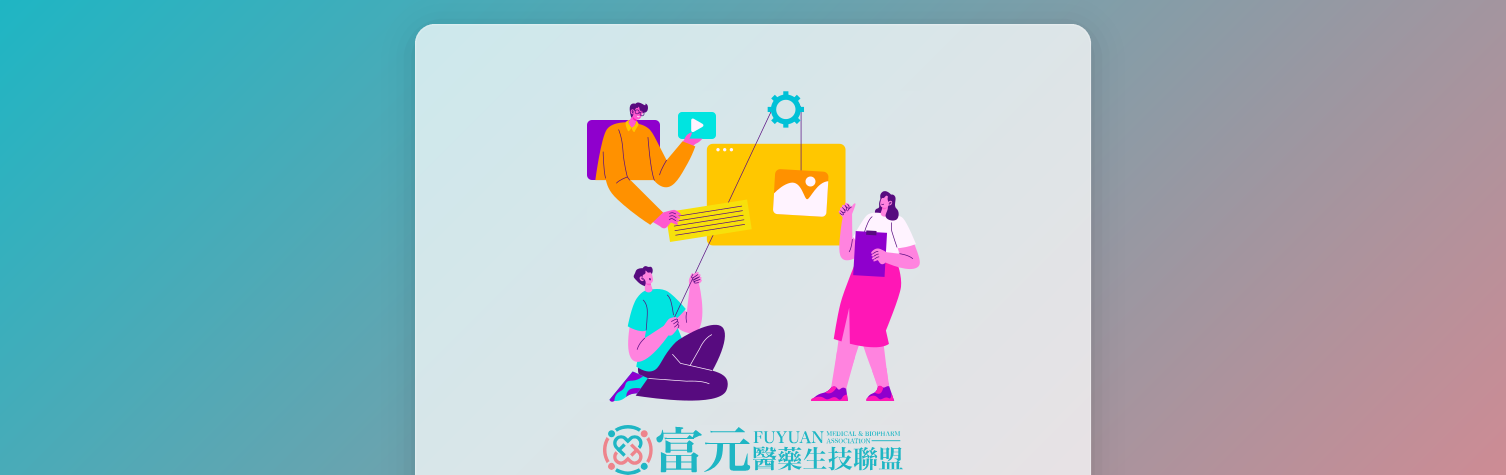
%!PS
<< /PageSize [1506 475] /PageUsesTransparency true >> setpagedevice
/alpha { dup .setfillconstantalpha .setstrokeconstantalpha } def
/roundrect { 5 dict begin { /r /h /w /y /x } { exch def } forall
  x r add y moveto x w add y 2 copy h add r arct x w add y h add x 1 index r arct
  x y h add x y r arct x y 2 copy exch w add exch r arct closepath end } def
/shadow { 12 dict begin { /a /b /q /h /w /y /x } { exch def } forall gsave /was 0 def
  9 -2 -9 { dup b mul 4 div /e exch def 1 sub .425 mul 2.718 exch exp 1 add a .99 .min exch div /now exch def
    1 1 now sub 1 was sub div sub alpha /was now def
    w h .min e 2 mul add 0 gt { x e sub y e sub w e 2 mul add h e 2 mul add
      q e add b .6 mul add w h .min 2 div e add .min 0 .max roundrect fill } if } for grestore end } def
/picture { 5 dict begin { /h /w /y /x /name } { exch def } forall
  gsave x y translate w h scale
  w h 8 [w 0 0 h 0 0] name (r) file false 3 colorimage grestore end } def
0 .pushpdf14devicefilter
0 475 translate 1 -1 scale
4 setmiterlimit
1 setgray
0 0 1506 475 rectfill
gsave newpath 0 0 moveto 1506 0 lineto 1506 475 lineto 0 475 lineto closepath clip newpath
<< /ShadingType 2 /ColorSpace /DeviceRGB /Coords [168 -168 1338 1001] /Extend [true true] /Function << /FunctionType 2 /Domain [0 1] /C0 [0.122 0.714 0.769] /C1 [0.933 0.518 0.549] /N 1 >> >> shfill grestore
gsave
newpath 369 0 moveto 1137 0 lineto 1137 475 lineto 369 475 lineto closepath 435 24 moveto 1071 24 lineto 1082 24 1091 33 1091 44 curveto 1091 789 lineto 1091 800 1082 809 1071 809 curveto 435 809 lineto 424 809 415 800 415 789 curveto 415 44 lineto 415 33 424 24 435 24 curveto closepath eoclip newpath
0 setgray
415 30 676 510 20 15 0.15 shadow
grestore
0.73 alpha
415 24 676 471 20 roundrect fill
0.25 alpha
415.5 24.5 675 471 19.5 roundrect stroke
1 alpha
(img1.rgb) 587 91 333 311 picture
(img2.rgb) 603 425 300 50 picture
.poppdf14devicefilter showpage
